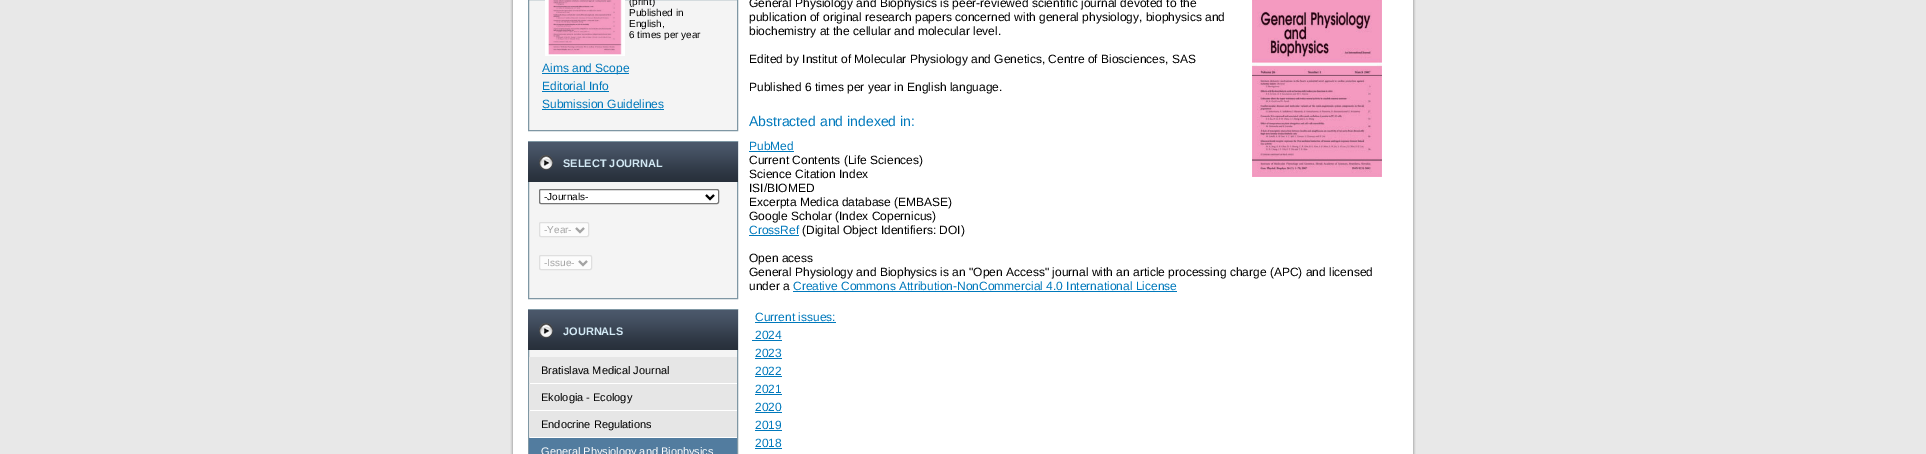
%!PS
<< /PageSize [1926 454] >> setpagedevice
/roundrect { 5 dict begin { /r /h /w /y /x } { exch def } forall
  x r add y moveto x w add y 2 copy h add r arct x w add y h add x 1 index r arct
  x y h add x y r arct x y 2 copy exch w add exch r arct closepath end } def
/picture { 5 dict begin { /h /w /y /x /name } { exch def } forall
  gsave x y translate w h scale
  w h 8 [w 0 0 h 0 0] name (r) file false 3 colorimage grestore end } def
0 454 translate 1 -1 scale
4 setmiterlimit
0.91 setgray
0 0 1926 454 rectfill
(img1.rgb) 510 0 906 454 picture
0.957 setgray
newpath 528.5 -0.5 moveto 737.5 -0.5 lineto 737.5 130.5 lineto 528.5 130.5 lineto closepath gsave fill grestore
0.498 0.592 0.643 setrgbcolor
stroke
(img2.rgb) 545 0 80 56 picture
/LiberationSans-Regular [10 0 0 -10 0 0] selectfont
0 setgray
629 5 moveto (\(print\)) show
629 16 moveto (Published in) show
629 27 moveto (English,) show
629 38 moveto (6 times per year) show
0 0.475 0.737 setrgbcolor
542 73 87 1 rectfill
/LiberationSans-Regular [12 0 0 -12 0 0] selectfont
542 72 moveto (Aims and Scope) show
542 90 moveto (Editorial Info) show
542 91 67 1 rectfill
542 108 moveto (Submission Guidelines) show
542 109 122 1 rectfill
0.957 setgray
529 182 208 116 rectfill
0.498 0.592 0.643 setrgbcolor
528.5 141.5 209 157 rectstroke
(img3.rgb) 528 142 210 40 picture
/LiberationSans-Bold [11 0 0 -11 0 0] selectfont
0.824 0.91 0.957 setrgbcolor
563 167 moveto (SELECT JOURNAL) show
1 setgray
539.5 189.5 179 14 1.5 roundrect gsave fill grestore
0.463 setgray
stroke
0 setgray
2 setlinewidth
newpath 706 195 moveto 710 199 lineto 714 195 lineto stroke
/LiberationSans-Regular [10 0 0 -10 0 0] selectfont
544 200 moveto (-Journals-) show
0.988 setgray
539.5 222.5 49 14 1.5 roundrect gsave fill grestore
0.875 setgray
1 setlinewidth
stroke
0.639 setgray
2 setlinewidth
newpath 576 228 moveto 580 232 lineto 584 228 lineto stroke
544 233 moveto (-Year-) show
0.988 setgray
539.5 255.5 52 14 1.5 roundrect gsave fill grestore
0.875 setgray
1 setlinewidth
stroke
0.639 setgray
2 setlinewidth
newpath 579 261 moveto 583 265 lineto 587 261 lineto stroke
544 266 moveto (-Issue-) show
0.957 setgray
529 350 208 7 rectfill
0.498 0.592 0.643 setrgbcolor
1 setlinewidth
528.5 309.5 209 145 rectstroke
(img3.rgb) 528 310 210 40 picture
/LiberationSans-Bold [11 0 0 -11 0 0] selectfont
0.824 0.91 0.957 setrgbcolor
563 335 moveto (JOURNALS) show
0.902 setgray
529 357 208 26 rectfill
/LiberationSans-Regular [11 0 0 -11 0 0] selectfont
0 setgray
541 374 moveto (Bratislava Medical Journal) show
0.902 setgray
529 384 208 26 rectfill
0 setgray
541 401 moveto (Ekologia - Ecology) show
0.902 setgray
529 411 208 26 rectfill
0 setgray
541 428 moveto (Endocrine Regulations) show
0.322 0.486 0.624 setrgbcolor
529 438 208 16 rectfill
1 setgray
541 455 moveto (General Physiology and Biophysics) show
/LiberationSans-Regular [12 0 0 -12 0 0] selectfont
0 setgray
749 7 moveto (General Physiology and Biophysics is peer-reviewed scientific journal devoted to the) show
(img4.rgb) 1252 0 130 177 picture
749 21 moveto (publication of original research papers concerned with general physiology, biophysics and) show
749 35 moveto (biochemistry at the cellular and molecular level.) show
749 63 moveto (Edited by Institut of Molecular Physiology and Genetics, Centre of Biosciences, SAS) show
749 91 moveto (Published 6 times per year in English language.) show
/LiberationSans-Regular [14 0 0 -14 0 0] selectfont
0 0.475 0.737 setrgbcolor
749 126 moveto (Abstracted and indexed in:) show
/LiberationSans-Regular [12 0 0 -12 0 0] selectfont
749 150 moveto (PubMed) show
749 151 45 1 rectfill
0 setgray
749 164 moveto (Current Contents \(Life Sciences\)) show
749 178 moveto (Science Citation Index) show
749 192 moveto (ISI/BIOMED) show
749 206 moveto (Excerpta Medica database \(EMBASE\)) show
749 220 moveto (Google Scholar \(Index Copernicus\)) show
0 0.475 0.737 setrgbcolor
749 234 moveto (CrossRef) show
749 235 50 1 rectfill
0 setgray
802 234 moveto (\(Digital Object Identifiers: DOI\)) show
749 262 moveto (Open acess) show
749 276 moveto (General Physiology and Biophysics is an "Open Access" journal with an article processing charge \(APC\) and licensed) show
749 290 moveto (under a) show
0 0.475 0.737 setrgbcolor
793 290 moveto (Creative Commons Attribution-NonCommercial 4.0 International License) show
793 291 384 1 rectfill
755 321 moveto (Current issues:) show
755 322 81 1 rectfill
755 339 moveto (2024) show
752 340 30 1 rectfill
755 357 moveto (2023) show
755 358 27 1 rectfill
755 375 moveto (2022) show
755 376 27 1 rectfill
755 393 moveto (2021) show
755 394 27 1 rectfill
755 411 moveto (2020) show
755 412 27 1 rectfill
755 429 moveto (2019) show
755 430 27 1 rectfill
755 447 moveto (2018) show
755 448 27 1 rectfill
showpage
